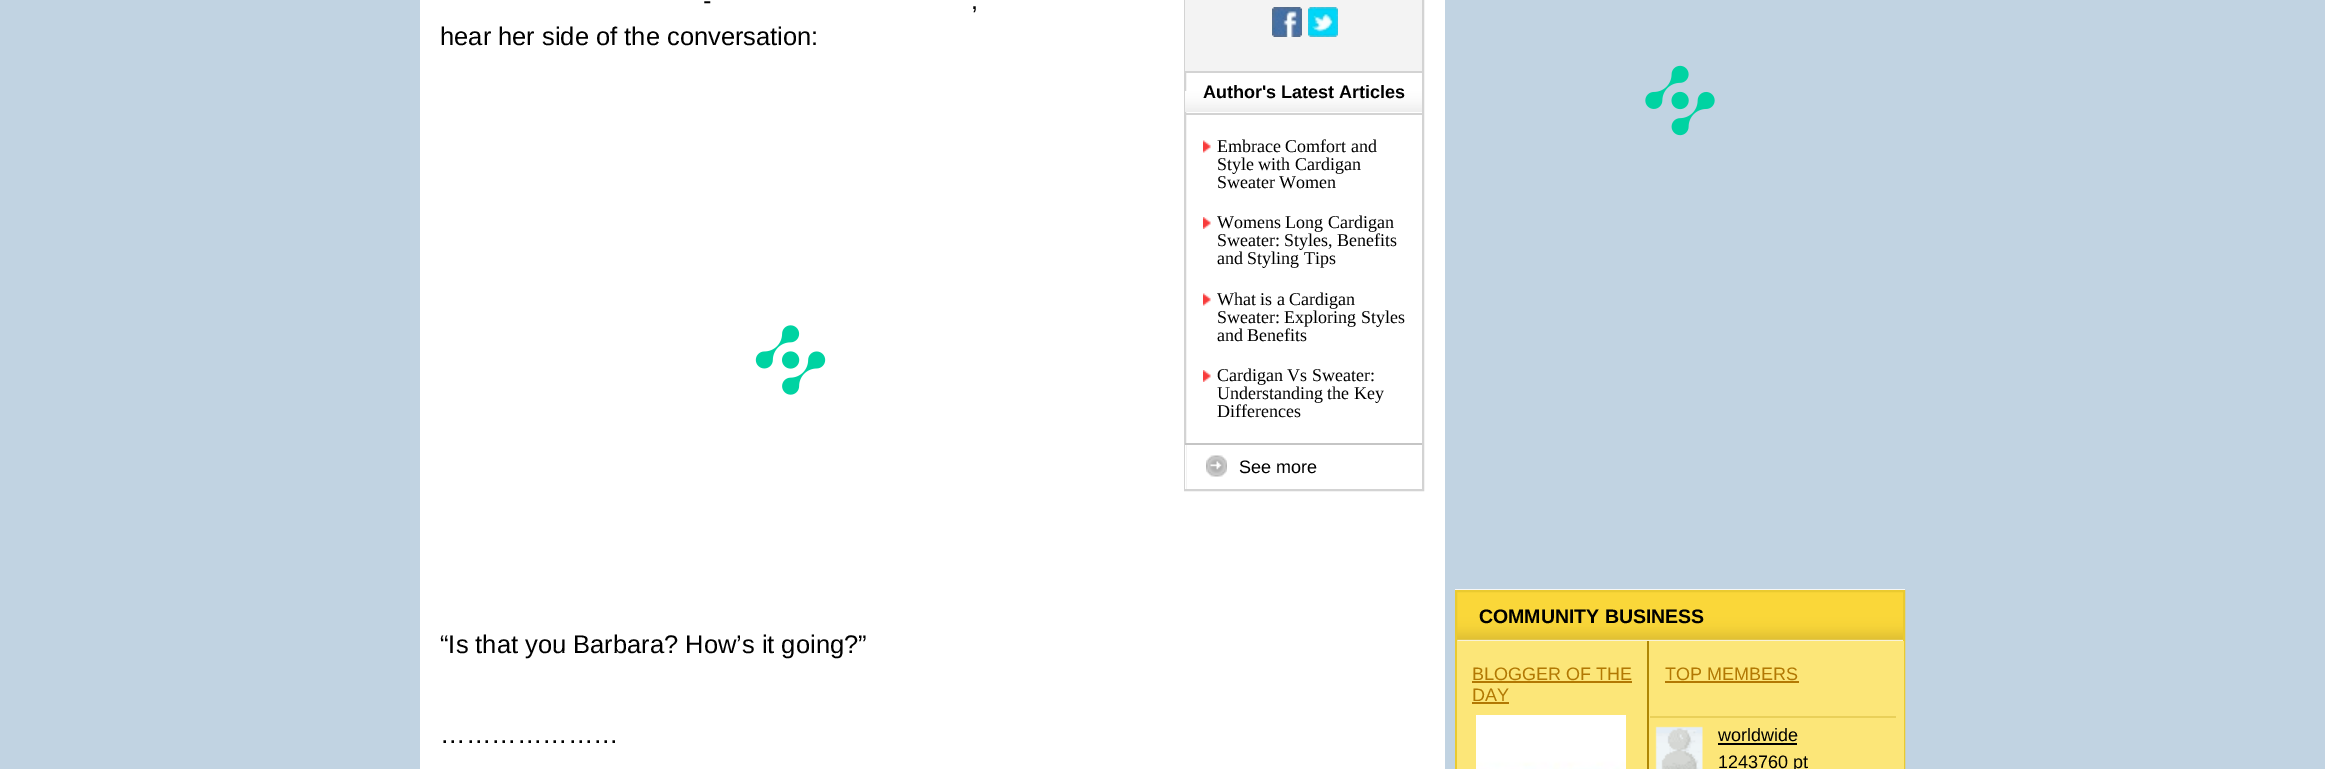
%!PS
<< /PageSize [2325 769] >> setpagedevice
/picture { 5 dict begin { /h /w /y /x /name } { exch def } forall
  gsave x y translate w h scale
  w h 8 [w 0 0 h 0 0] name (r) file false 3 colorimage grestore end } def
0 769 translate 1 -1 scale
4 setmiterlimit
0.757 0.827 0.886 setrgbcolor
0 0 2325 769 rectfill
1 setgray
420 0 1025 769 rectfill
/LiberationSans-Regular [25.5 0 0 -25.5 0 0] selectfont
0 setgray
703 9 moveto 3 0 32 (-) widthshow
971 9 moveto 3 0 32 (,) widthshow
440 45 moveto (hear her side of the conversation:) show
(img1.rgb) 755 325 71 70 picture
440 653 moveto (“Is that you Barbara? How’s it going?”) show
440 743 moveto (…………………) show
0.827 setgray
2 setlinewidth
1185 -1 238 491 rectstroke
0.953 setgray
1185 0 237 71 rectfill
(img2.rgb) 1272 7 30 30 picture
(img3.rgb) 1308 7 30 30 picture
(img4.rgb) 1185 91 237 21 picture
0.827 setgray
1185 71 237 2 rectfill
1185 113 237 2 rectfill
/LiberationSans-Bold [18 0 0 -18 0 0] selectfont
0 setgray
1203 98 moveto (Author's Latest Articles) show
(img5.rgb) 1203 140 8 13 picture
/LiberationSerif-Regular [18 0 0 -18 0 0] selectfont
1217 152 moveto (Embrace Comfort and) show
1217 170 moveto (Style with Cardigan) show
1217 188 moveto (Sweater Women) show
(img6.rgb) 1203 217 8 12 picture
1217 228 moveto (Womens Long Cardigan) show
1217 246 moveto (Sweater: Styles, Benefits) show
1217 264 moveto (and Styling Tips) show
(img5.rgb) 1203 293 8 13 picture
1217 305 moveto (What is a Cardigan) show
1217 323 moveto (Sweater: Exploring Styles) show
1217 341 moveto (and Benefits) show
(img6.rgb) 1203 370 8 12 picture
1217 381 moveto (Cardigan Vs Sweater:) show
1217 399 moveto (Understanding the Key) show
1217 417 moveto (Differences) show
1 setgray
1185 445 1 44 rectfill
(img7.rgb) 1206 455 21 22 picture
0.773 setgray
1185 443 237 2 rectfill
/LiberationSans-Regular [18 0 0 -18 0 0] selectfont
0 setgray
1239 473 moveto (See more) show
(img8.rgb) 1645 65 70 71 picture
(img9.rgb) 1455 589 450 52 picture
0.918 0.792 0.184 setrgbcolor
1456 591 448 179 rectstroke
/LiberationSans-Bold [19.5 0 0 -19.5 0 0] selectfont
0 setgray
1479 623 moveto (COMMUNITY BUSINESS) show
0.988 0.902 0.471 setrgbcolor
1457 641 447 128 rectfill
0.686 0.525 0.016 setrgbcolor
1647 641 2 128 rectfill
/LiberationSans-Regular [18 0 0 -18 0 0] selectfont
0.698 0.471 0.012 setrgbcolor
1472 680 moveto (BLOGGER OF THE) show
1472 681 160 2 rectfill
1472 701 moveto (DAY) show
1472 702 37 2 rectfill
(img10.rgb) 1476 715 150 54 picture
1665 680 moveto (TOP MEMBERS) show
1665 681 134 2 rectfill
0.914 0.816 0.349 setrgbcolor
1650 716 246 2 rectfill
(img11.rgb) 1655 726 48 43 picture
0 setgray
1718 741 moveto (worldwide) show
1718 743 79 2 rectfill
1718 768 moveto (1243760 pt) show
showpage
